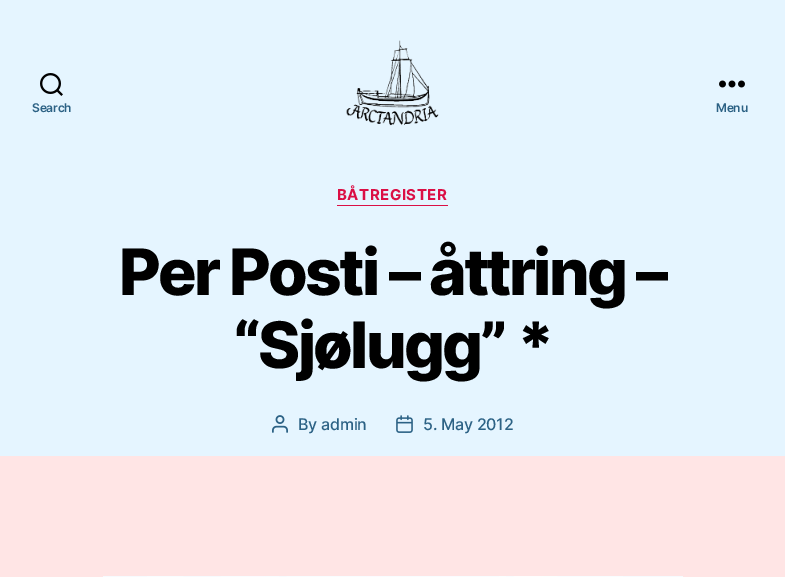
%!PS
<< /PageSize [785 577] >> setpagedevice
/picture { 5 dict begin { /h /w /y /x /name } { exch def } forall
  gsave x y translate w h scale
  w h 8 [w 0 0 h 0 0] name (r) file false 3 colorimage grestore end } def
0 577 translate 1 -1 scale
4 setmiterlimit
1 0.898 0.898 setrgbcolor
0 0 785 577 rectfill
0.898 0.961 1 setrgbcolor
0 0 785 456 rectfill
(img1.rgb) 40 73 23 23 picture
/Inter-SemiBold [12 0 0 -12 0 0] selectfont
0.173 0.384 0.522 setrgbcolor
32 112 moveto -0.25 0 (Search) ashow
(img2.rgb) 346 40 93 86 picture
(img3.rgb) 719 80 26 8 picture
716 112 moveto -0.25 0 (Menu) ashow
0.859 0.059 0.271 setrgbcolor
337 205 111 1 rectfill
/Inter-Bold [15 0 0 -15 0 0] selectfont
337 200 moveto 0.5 0 (BÅTREGISTER) ashow
/Inter-ExtraBold [64 0 0 -64 0 0] selectfont
0 setgray
119 295 moveto -2.7 0 (Per Posti – åttring –) ashow
233 368 moveto -2.7 0 (“Sjølugg” *) ashow
(img4.rgb) 272 415 16 18 picture
/Inter-Medium [16 0 0 -16 0 0] selectfont
0.173 0.384 0.522 setrgbcolor
298 430 moveto -0.25 0 (By admin) ashow
(img5.rgb) 396 415 17 18 picture
423 430 moveto -0.25 0 (5. May 2012) ashow
(img6.rgb) 103 576 580 1 picture
showpage
